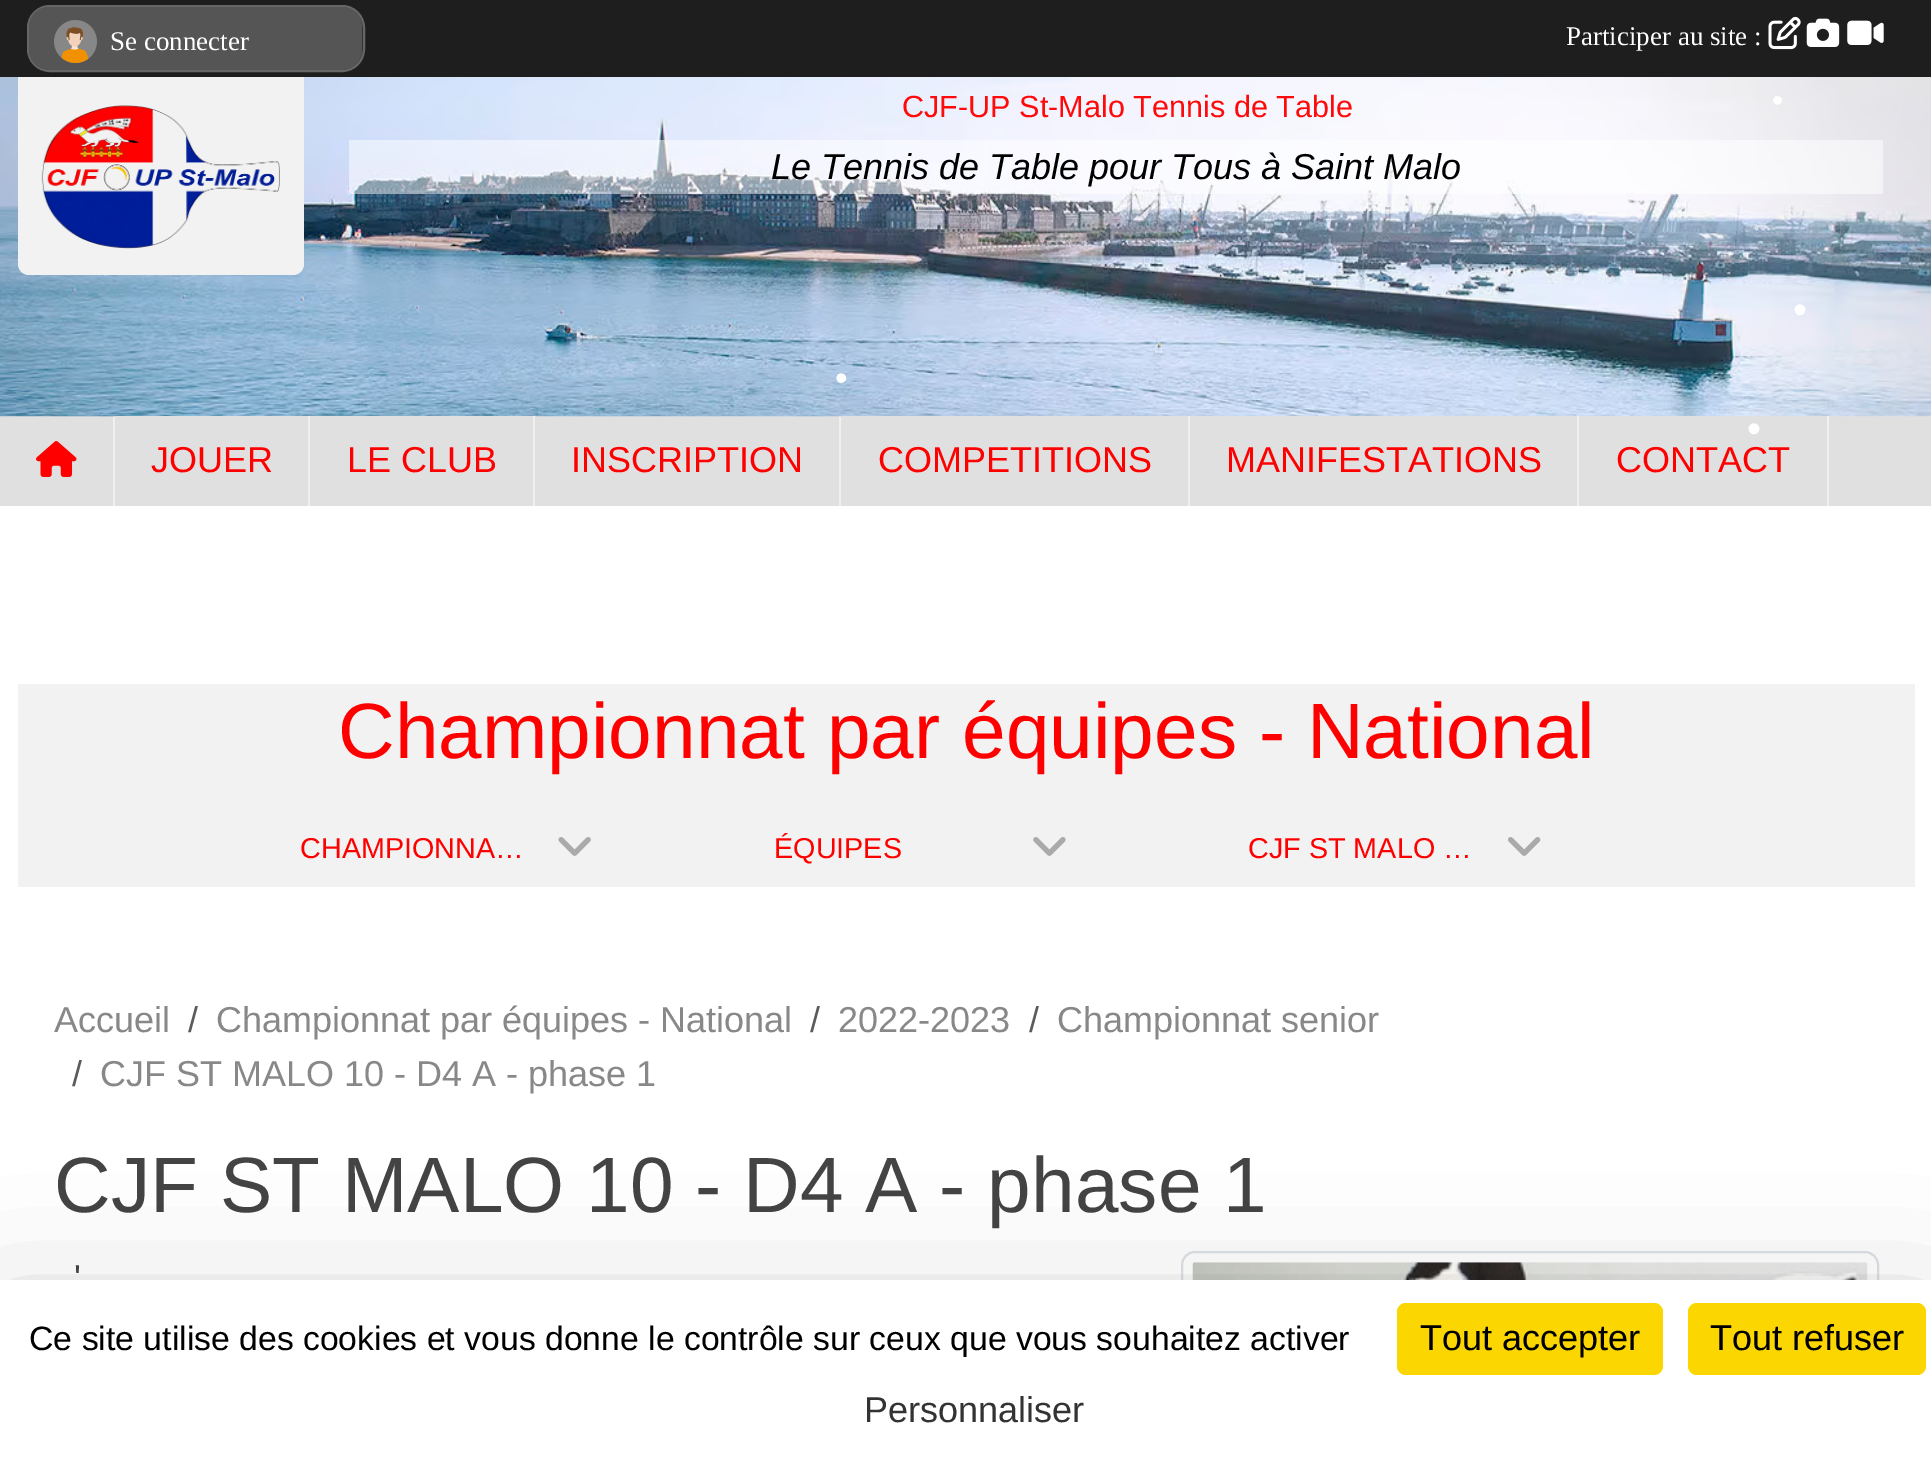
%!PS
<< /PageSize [1931 1469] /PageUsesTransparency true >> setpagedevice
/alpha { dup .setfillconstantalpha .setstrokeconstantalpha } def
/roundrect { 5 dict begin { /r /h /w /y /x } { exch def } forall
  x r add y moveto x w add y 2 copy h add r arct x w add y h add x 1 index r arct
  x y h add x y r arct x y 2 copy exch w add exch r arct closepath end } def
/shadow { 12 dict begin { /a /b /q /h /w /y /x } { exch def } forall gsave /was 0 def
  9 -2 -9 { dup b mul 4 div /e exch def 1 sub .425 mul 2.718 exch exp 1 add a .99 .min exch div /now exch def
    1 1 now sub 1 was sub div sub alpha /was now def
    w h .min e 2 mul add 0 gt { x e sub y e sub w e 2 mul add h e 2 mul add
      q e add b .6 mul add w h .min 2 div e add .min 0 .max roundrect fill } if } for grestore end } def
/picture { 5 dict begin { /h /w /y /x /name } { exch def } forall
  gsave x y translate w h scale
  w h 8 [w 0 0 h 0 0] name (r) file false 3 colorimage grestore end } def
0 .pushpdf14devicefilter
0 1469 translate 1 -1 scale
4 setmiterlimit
1 setgray
0 0 1931 1469 rectfill
0.118 setgray
0 0 1931 77 rectfill
0.2 setgray
28 6 336 65 22 roundrect gsave fill grestore
0.4 setgray
2 setlinewidth
stroke
0.333 setgray
29 7 333 63 20 roundrect fill
(img1.rgb) 54 20 43 43 picture
/LiberationSerif-Regular [27 0 0 -27 0 0] selectfont
1 setgray
110 50 moveto (Se connecter) show
1566 45 moveto (Participer au site :) show
(img2.rgb) 1768 16 33 34 picture
(img3.rgb) 1806 18 34 29 picture
(img4.rgb) 1847 20 37 25 picture
0.878 setgray
0 416 1931 90 rectfill
0.941 setgray
113 416 2 90 rectfill
839 416 2 90 rectfill
(img6.rgb) 0 77 1931 340 picture
0.949 setgray
newpath 18 77 moveto 304 77 lineto 304 264 lineto 304 270 299 275 293 275 curveto 29 275 lineto 23 275 18 270 18 264 curveto closepath fill
(img5.rgb) 41 105 239 144 picture
/LiberationSans-Regular [30.6 0 0 -30.6 0 0] selectfont
1 0.039 0.039 setrgbcolor
902 117 moveto (CJF-UP St-Malo Tennis de Table) show
0.5 alpha
1 setgray
349 140 1534 54 rectfill
/LiberationSans-Italic [36 0 0 -36 0 0] selectfont
1 alpha
0 setgray
771 179 moveto (Le Tennis de Table pour Tous à Saint Malo) show
(img7.rgb) 36 441 41 36 picture
0.878 setgray
115 416 421 1 rectfill
0.941 setgray
308 416 2 90 rectfill
/LiberationSans-Regular [36 0 0 -36 0 0] selectfont
1 0 0 setrgbcolor
151 472 moveto (JOUER) show
0.941 setgray
533 416 2 90 rectfill
1 0 0 setrgbcolor
347 472 moveto (LE CLUB) show
571 472 moveto (INSCRIPTION) show
0.878 setgray
842 416 346 1 rectfill
0.941 setgray
1188 416 2 90 rectfill
1 0 0 setrgbcolor
878 472 moveto (COMPETITIONS) show
0.878 setgray
1190 416 637 1 rectfill
0.941 setgray
1577 416 2 90 rectfill
1 0 0 setrgbcolor
1226 472 moveto (MANIFESTATIONS) show
0.941 setgray
1827 416 2 90 rectfill
1 0 0 setrgbcolor
1616 472 moveto (CONTACT) show
0.949 setgray
18 684 1897 203 rectfill
/LiberationSans-Regular [78.5 0 0 -78.5 0 0] selectfont
1 0 0 setrgbcolor
338 758 moveto (Championnat par équipes - National) show
/LiberationSans-Regular [28.75 0 0 -28.75 0 0] selectfont
300 858 moveto (CHAMPIONNA…) show
(img8.rgb) 558 837 33 19 picture
774 858 moveto (ÉQUIPES) show
(img9.rgb) 1033 837 33 19 picture
1248 858 moveto (CJF ST MALO …) show
(img10.rgb) 1508 837 33 19 picture
/LiberationSans-Regular [36 0 0 -36 0 0] selectfont
0.533 setgray
54 1032 moveto (Accueil) show
0.349 0.361 0.373 setrgbcolor
188 1032 moveto (/) show
0.533 setgray
216 1032 moveto (Championnat par équipes - National) show
0.349 0.361 0.373 setrgbcolor
810 1032 moveto (/) show
0.533 setgray
838 1032 moveto (2022-2023) show
0.349 0.361 0.373 setrgbcolor
1029 1032 moveto (/) show
0.533 setgray
1057 1032 moveto (Championnat senior) show
0.349 0.361 0.373 setrgbcolor
72 1086 moveto (/) show
0.533 setgray
100 1086 moveto (CJF ST MALO 10 - D4 A - phase 1) show
/LiberationSans-Regular [78.5 0 0 -78.5 0 0] selectfont
0.267 setgray
54 1212 moveto (CJF ST MALO 10 - D4 A - phase 1) show
/LiberationSans-Regular [36 0 0 -36 0 0] selectfont
74 1290 moveto (') show
0.871 0.886 0.902 setrgbcolor
1182 1252 696 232 13 roundrect stroke
(img11.rgb) 1192 1262 676 18 picture
/LiberationSans-Regular [32 0 0 -32 0 0] selectfont
1 setgray
1772 111 moveto (•) show
/LiberationSans-Regular [40 0 0 -40 0 0] selectfont
1793 323 moveto (•) show
/LiberationSans-Regular [36 0 0 -36 0 0] selectfont
835 390 moveto (•) show
/LiberationSans-Regular [40 0 0 -40 0 0] selectfont
1747 442 moveto (•) show
0 setgray
0 1325 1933 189 0 67.5 0.25 shadow
1 setgray
0 1280 1931 189 rectfill
/LiberationSans-Regular [33.75 0 0 -33.75 0 0] selectfont
0 setgray
29 1350 moveto (Ce site utilise des cookies et vous donne le contrôle sur ceux que vous souhaitez activer) show
0.984 0.839 0 setrgbcolor
1397 1303 266 72 9 roundrect fill
/LiberationSans-Regular [36 0 0 -36 0 0] selectfont
0 setgray
1420 1350 moveto (Tout accepter) show
0.984 0.839 0 setrgbcolor
1688 1303 238 72 9 roundrect fill
0 setgray
1710 1350 moveto (Tout refuser) show
0.2 setgray
864 1422 moveto (Personnaliser) show
.poppdf14devicefilter showpage
